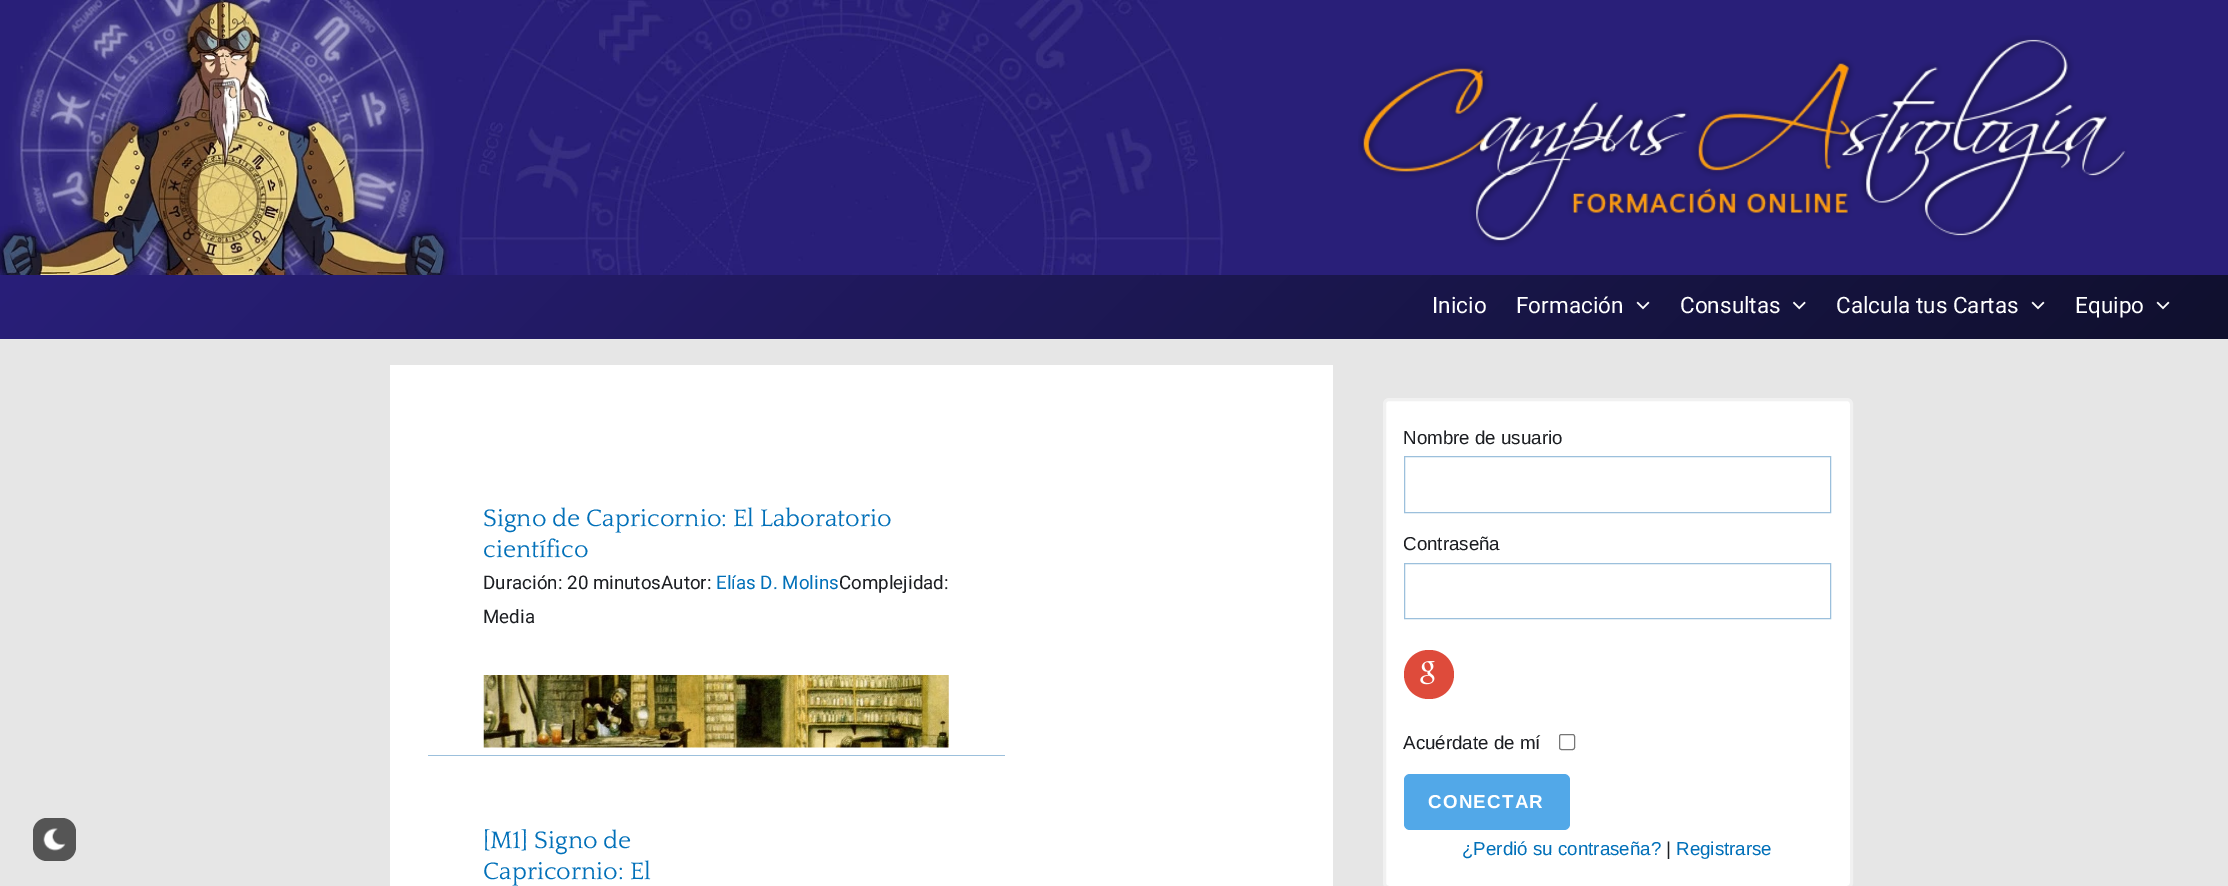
%!PS
<< /PageSize [2228 886] >> setpagedevice
/roundrect { 5 dict begin { /r /h /w /y /x } { exch def } forall
  x r add y moveto x w add y 2 copy h add r arct x w add y h add x 1 index r arct
  x y h add x y r arct x y 2 copy exch w add exch r arct closepath end } def
/picture { 5 dict begin { /h /w /y /x /name } { exch def } forall
  gsave x y translate w h scale
  w h 8 [w 0 0 h 0 0] name (r) file false 3 colorimage grestore end } def
0 886 translate 1 -1 scale
4 setmiterlimit
0.902 setgray
0 0 2228 886 rectfill
0.333 setgray
33 818 43 43 14 roundrect fill
(img1.rgb) 43 828 23 23 picture
(img2.rgb) 0 0 2228 275 picture
(img3.rgb) 1358 35 769 212 picture
gsave newpath 0 275 moveto 2228 275 lineto 2228 339 lineto 0 339 lineto closepath clip newpath
<< /ShadingType 2 /ColorSpace /DeviceRGB /Coords [541 -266 1688 880] /Extend [true true] /Function << /FunctionType 2 /Domain [0 1] /C0 [0.161 0.122 0.475] /C1 [0.063 0.063 0.18] /N 1 >> >> shfill grestore
0.918 setgray
0 339 2228 1 rectfill
/Heebo-Regular [22.5 0 0 -22.5 0 0] selectfont
1 setgray
1432 313 moveto (Inicio) show
1516 313 moveto (Formación) show
(img4.rgb) 1636 301 14 9 picture
1680 313 moveto (Consultas) show
(img5.rgb) 1793 301 13 9 picture
1836 313 moveto (Calcula tus Cartas) show
(img6.rgb) 2031 301 14 9 picture
2075 313 moveto (Equipo) show
(img7.rgb) 2156 301 14 9 picture
390 365 943 521 rectfill
0.612 0.753 0.863 setrgbcolor
428 755 577 1 rectfill
/Quattrocento-Regular [25 0 0 -25 0 0] selectfont
0.004 0.439 0.725 setrgbcolor
483 526 moveto (Signo de Capricornio: El Laboratorio) show
483 557 moveto (científico) show
/Heebo-Regular [18.75 0 0 -18.75 0 0] selectfont
0.11 0.118 0.133 setrgbcolor
483 589 moveto (Duración: 20 minutosAutor:) show
0.004 0.439 0.725 setrgbcolor
716 589 moveto (Elías D. Molins) show
0.11 0.118 0.133 setrgbcolor
839 589 moveto (Complejidad:) show
483 623 moveto (Media) show
(img8.rgb) 483 675 466 73 picture
/Quattrocento-Regular [25 0 0 -25 0 0] selectfont
0.004 0.439 0.725 setrgbcolor
483 848 moveto ([M1] Signo de) show
483 879 moveto (Capricornio: El) show
1 setgray
1384.5 399.5 467 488 4.5 roundrect gsave fill grestore
0.945 setgray
3 setlinewidth
stroke
/LiberationSans-Regular [18.75 0 0 -18.75 0 0] selectfont
0.11 0.118 0.133 setrgbcolor
1403 444 moveto (Nombre de usuario) show
0.612 0.753 0.863 setrgbcolor
1 setlinewidth
1404.5 456.5 426 56 rectstroke
0.11 0.118 0.133 setrgbcolor
1403 550 moveto (Contraseña) show
0.612 0.753 0.863 setrgbcolor
1404.5 563.5 426 55 rectstroke
0.871 0.294 0.231 setrgbcolor
1404 650 50 49 24.5 roundrect fill
(img9.rgb) 1420 661 15 24 picture
0.11 0.118 0.133 setrgbcolor
1403 749 moveto (Acuérdate de mí) show
0.463 setgray
1559.5 734.5 15 15 2 roundrect stroke
0.322 0.659 0.91 setrgbcolor
1404 774 166 56 6 roundrect fill
/LiberationSans-Bold [18.75 0 0 -18.75 0 0] selectfont
1 setgray
1428 808 moveto 1.25 0 (CONECTAR) ashow
/LiberationSans-Regular [18.75 0 0 -18.75 0 0] selectfont
0.004 0.439 0.725 setrgbcolor
1462 855 moveto (¿Perdió su contraseña?) show
0.11 0.118 0.133 setrgbcolor
1666 855 moveto (|) show
0.004 0.439 0.725 setrgbcolor
1676 855 moveto (Registrarse) show
showpage
